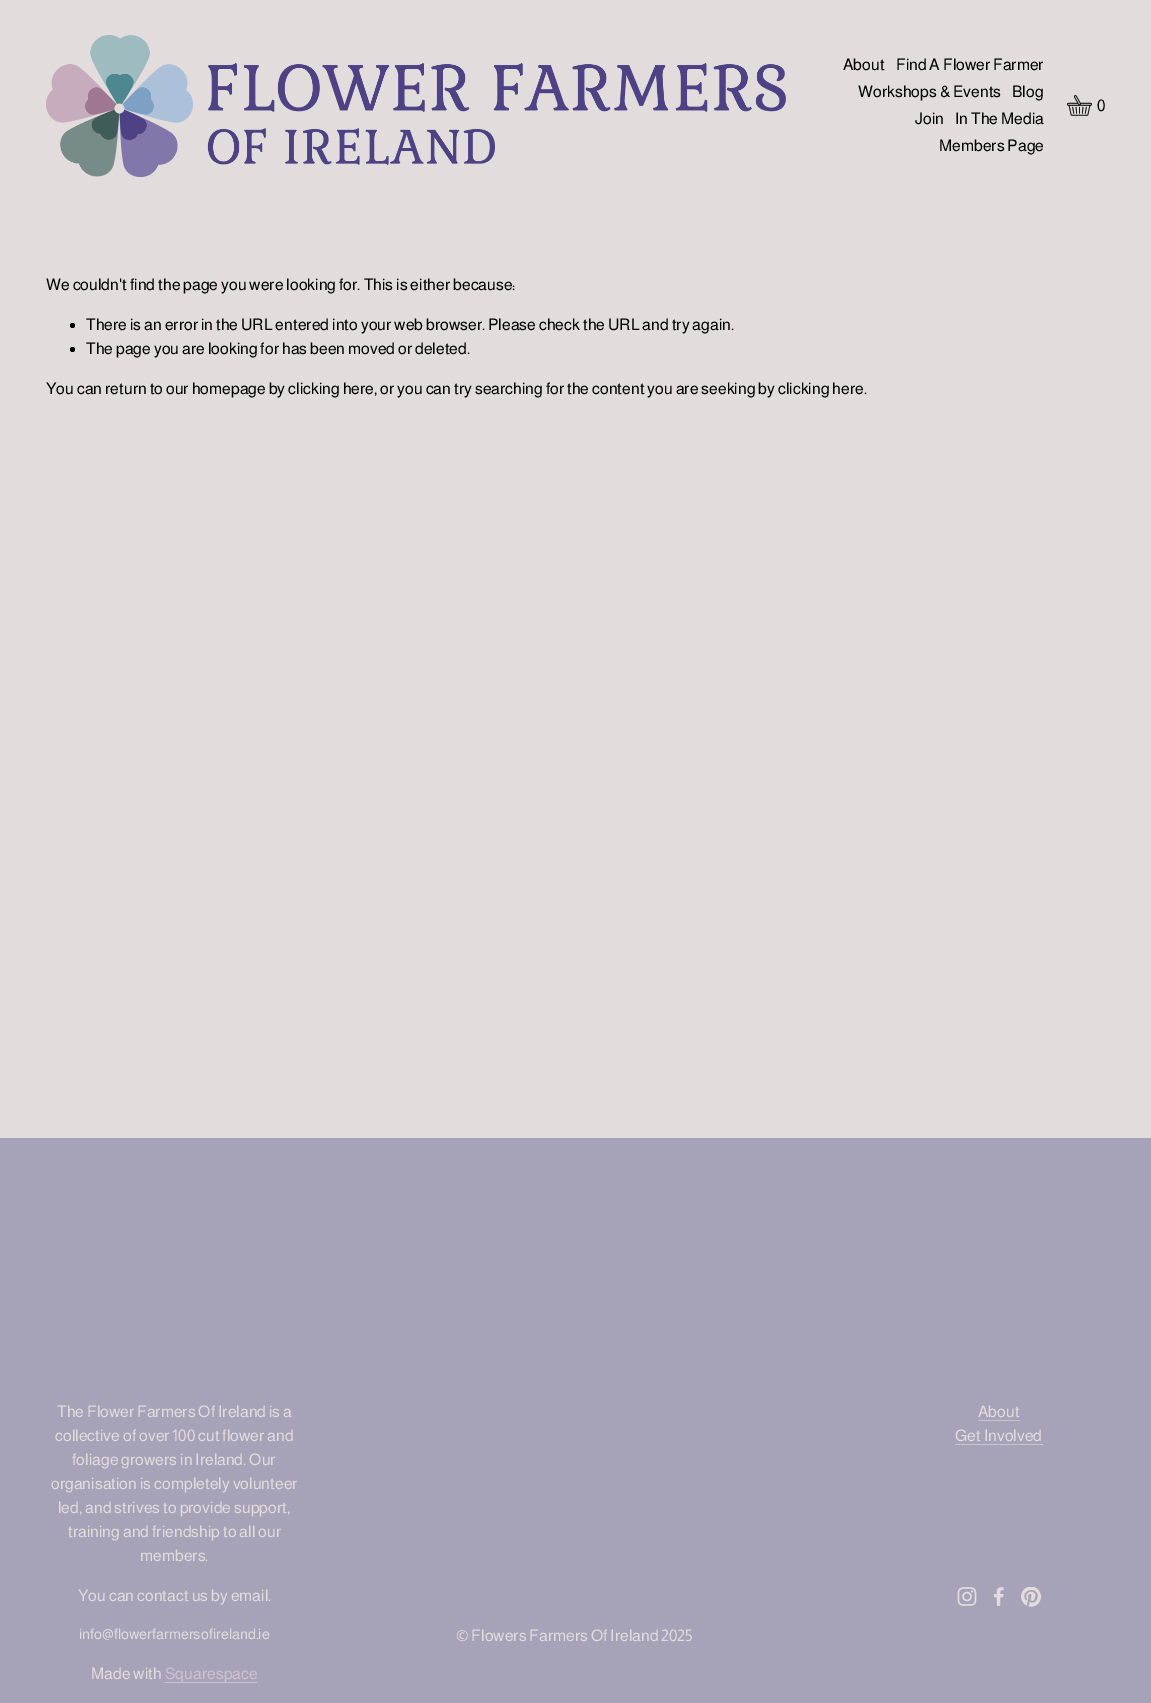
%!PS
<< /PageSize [1151 1703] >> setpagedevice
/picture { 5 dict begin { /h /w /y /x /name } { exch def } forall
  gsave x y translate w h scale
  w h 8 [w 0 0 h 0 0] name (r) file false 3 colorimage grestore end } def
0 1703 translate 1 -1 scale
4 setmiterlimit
0.89 0.863 0.863 setrgbcolor
0 0 1151 1703 rectfill
(img1.rgb) 46 35 740 142 picture
/Almarai-Regular [16 0 0 -16 0 0] selectfont
0 setgray
843 70 moveto (About) show
896 70 moveto (Find A Flower Farmer) show
858 97 moveto (Workshops & Events) show
1012 97 moveto (Blog) show
915 124 moveto (Join) show
955 124 moveto (In The Media) show
939 151 moveto (Members Page) show
(img2.rgb) 1067 95 25 21 picture
1097 111 moveto (0) show
46 290 moveto (We couldn't find the page you were looking for. This is either because:) show
newpath 72.5 325.5 2.5 0 360 arc closepath fill
86 330 moveto (There is an error in the URL entered into your web browser. Please check the URL and try again.) show
newpath 72.5 349.5 2.5 0 360 arc closepath fill
86 354 moveto (The page you are looking for has been moved or deleted.) show
46 394 moveto (You can return to our homepage by clicking here, or you can try searching for the content you are seeking by clicking here.) show
0.651 0.635 0.718 setrgbcolor
0 1138 1151 565 rectfill
0.89 0.863 0.863 setrgbcolor
57 1417 moveto (The Flower Farmers Of Ireland is a) show
55 1441 moveto (collective of over 100 cut flower and) show
72 1465 moveto (foliage growers in Ireland. Our) show
51 1489 moveto (organisation is completely volunteer) show
58 1513 moveto (led, and strives to provide support,) show
68 1537 moveto (training and friendship to all our) show
140 1561 moveto (members.) show
78 1601 moveto (You can contact us by email.) show
/Almarai-Regular [14.6 0 0 -14.6 0 0] selectfont
79 1639 moveto (info@flowerfarmersofireland.ie) show
/Almarai-Regular [16 0 0 -16 0 0] selectfont
91 1679 moveto (Made with) show
0.812 0.761 0.812 setrgbcolor
165 1682 92 1 rectfill
165 1679 moveto (Squarespace) show
0.89 0.863 0.863 setrgbcolor
978 1417 moveto (About) show
0.812 0.761 0.812 setrgbcolor
978 1420 42 1 rectfill
0.89 0.863 0.863 setrgbcolor
955 1441 moveto (Get Involved) show
0.812 0.761 0.812 setrgbcolor
955 1444 88 1 rectfill
(img3.rgb) 957 1587 20 19 picture
(img4.rgb) 994 1587 10 19 picture
(img5.rgb) 1021 1587 20 20 picture
0.89 0.863 0.863 setrgbcolor
456 1641 moveto (© Flowers Farmers Of Ireland 2025) show
showpage
